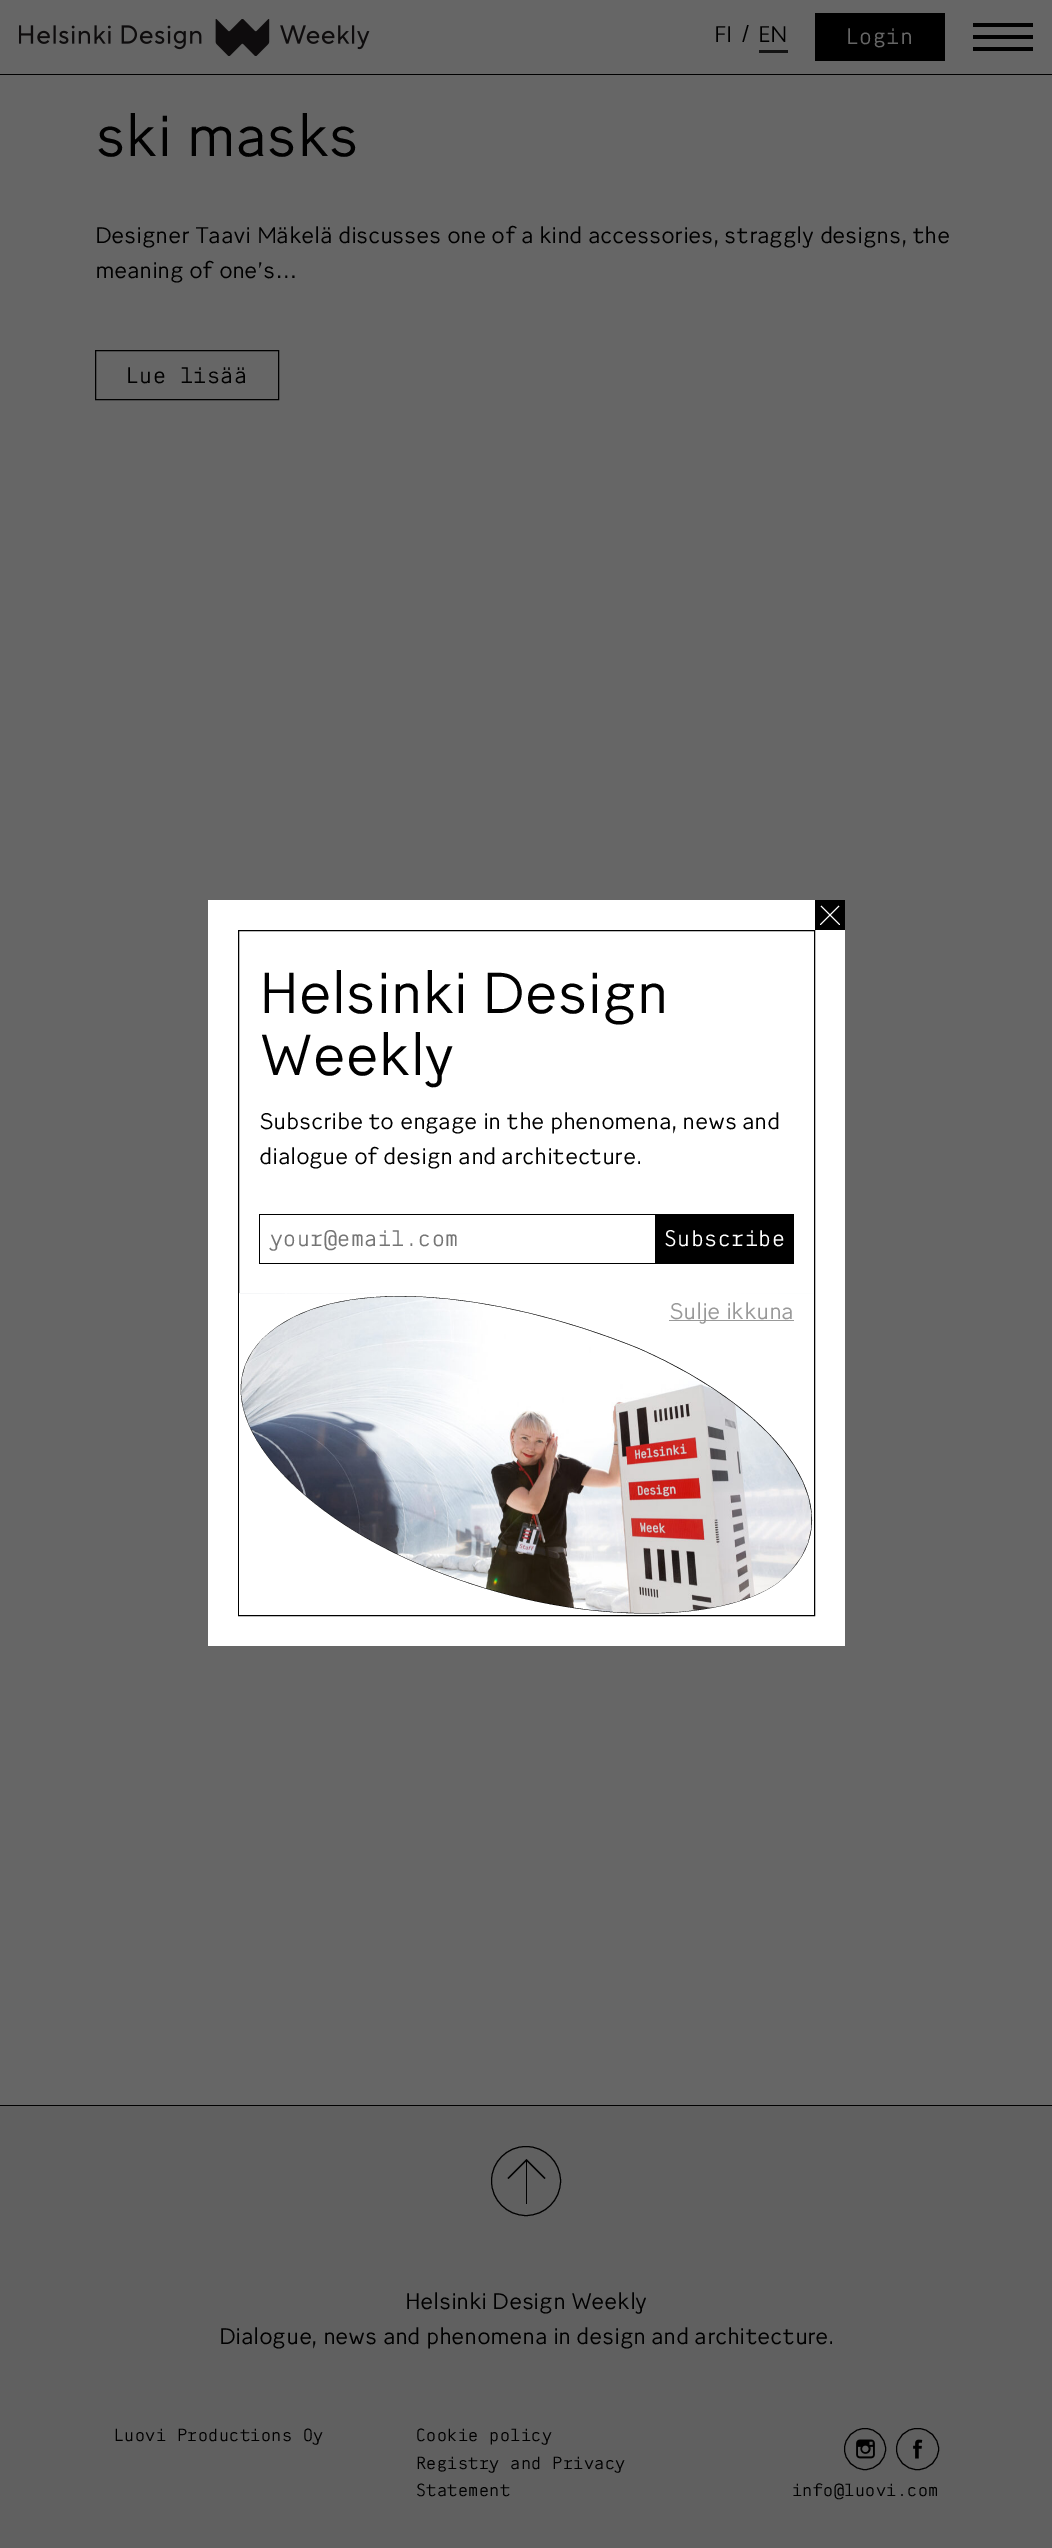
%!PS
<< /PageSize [1052 2548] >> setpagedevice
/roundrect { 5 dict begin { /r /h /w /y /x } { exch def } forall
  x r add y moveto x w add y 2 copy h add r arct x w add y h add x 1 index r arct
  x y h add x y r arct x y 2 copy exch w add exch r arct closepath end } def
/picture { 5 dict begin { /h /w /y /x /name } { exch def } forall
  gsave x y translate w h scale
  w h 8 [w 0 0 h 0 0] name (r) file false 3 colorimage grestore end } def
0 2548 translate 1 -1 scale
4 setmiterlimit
0.4 setgray
0 0 1052 2548 rectfill
0 setgray
0 74 1052 1 rectfill
(img1.rgb) 19 19 351 37 picture
/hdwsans-Regular [22.5 0 0 -22.5 0 0] selectfont
714 42 moveto (FI) show
740 42 moveto (/) show
0.078 setgray
759 50 29 3 rectfill
0 setgray
758 42 moveto (EN) show
815 13 130 48 rectfill
/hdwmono-Regular [22.5 0 0 -22.5 0 0] selectfont
0.4 setgray
846 44 moveto (Login) show
0 setgray
973 23 60 4 rectfill
973 47 60 4 rectfill
973 35 60 4 rectfill
/hdwsans-Regular [57.5 0 0 -57.5 0 0] selectfont
95 156 moveto (ski masks) show
/hdwsans-Regular [22.5 0 0 -22.5 0 0] selectfont
95 243 moveto (Designer Taavi Mäkelä discusses one of a kind accessories, straggly designs, the) show
95 278 moveto (meaning of one’s) show
/LiberationSans-Regular [22.5 0 0 -22.5 0 0] selectfont
275 278 moveto (…) show
95.5 350.5 183 49 rectstroke
/hdwmono-Regular [22.5 0 0 -22.5 0 0] selectfont
126 383 moveto (Lue lisää) show
0.376 setgray
0 2106 1052 442 rectfill
0 setgray
0 2105 1052 1 rectfill
newpath 526 2181 34.5 0 360 arc closepath stroke
1.2 setlinewidth
newpath 508 2178.5 moveto 526.5 2160 lineto 545 2178.5 lineto stroke
526 2161 1 43 rectfill
/hdwsans-Regular [22.5 0 0 -22.5 0 0] selectfont
405 2309 moveto (Helsinki Design Weekly) show
219 2344 moveto (Dialogue, news and phenomena in design and architecture.) show
/hdwmono-Regular [17.5 0 0 -17.5 0 0] selectfont
114 2441 moveto (Luovi Productions Oy) show
416 2441 moveto (Cookie policy) show
416 2469 moveto (Registry and Privacy) show
416 2496 moveto (Statement) show
1 setlinewidth
newpath 865 2449 20.5 0 360 arc closepath stroke
(img2.rgb) 856 2439 19 20 picture
896.5 2428.5 42 41 20.5 roundrect stroke
(img3.rgb) 913 2439 10 20 picture
792 2496 moveto (info@luovi.com) show
1 setgray
208 900 637 746 rectfill
0 setgray
815 900 30 30 rectfill
gsave
820 905 20 20 rectclip
1 setgray
0.9 setlinewidth
newpath 851.5 936.5 moveto 821 906 lineto 808.5 936.5 moveto 839 906 lineto stroke
grestore
238.5 930.5 576 685 rectstroke
/hdwsans-Regular [57.5 0 0 -57.5 0 0] selectfont
259 1013 moveto (Helsinki Design) show
259 1075 moveto (Weekly) show
/hdwsans-Regular [22.5 0 0 -22.5 0 0] selectfont
259 1129 moveto (Subscribe to engage in the phenomena, news and) show
259 1164 moveto (dialogue of design and architecture.) show
259 1214 396 1 rectfill
259 1263 396 1 rectfill
259 1214 1 50 rectfill
/hdwmono-Regular [22.5 0 0 -22.5 0 0] selectfont
0.459 setgray
270 1246 moveto (your@email.com) show
0 setgray
655 1214 139 50 rectfill
1 setgray
664 1246 moveto (Subscribe) show
(img4.rgb) 239 1293 575 321 picture
0 setgray
newpath 778 1583.5 moveto 861 1518.5 785.5 1412 638.5 1348 curveto 496 1290 330.5 1272 263 1337.5 curveto 195.5 1403.5 285.5 1512.5 432 1570 curveto 574.5 1628 723.5 1624 778 1583.5 curveto closepath stroke
1 setgray
newpath 239 1294 moveto 239 1615 lineto 814 1615 lineto 814 1294 lineto closepath 778 1583 moveto 723 1624 575 1628 432 1570 curveto 286 1512 196 1404 263 1338 curveto 330 1272 496 1290 639 1348 curveto 785 1412 861 1518 778 1583 curveto closepath fill
0.6 setgray
669 1320 125 1 rectfill
/hdwsans-Regular [22.5 0 0 -22.5 0 0] selectfont
669 1319 moveto (Sulje ikkuna) show
showpage
